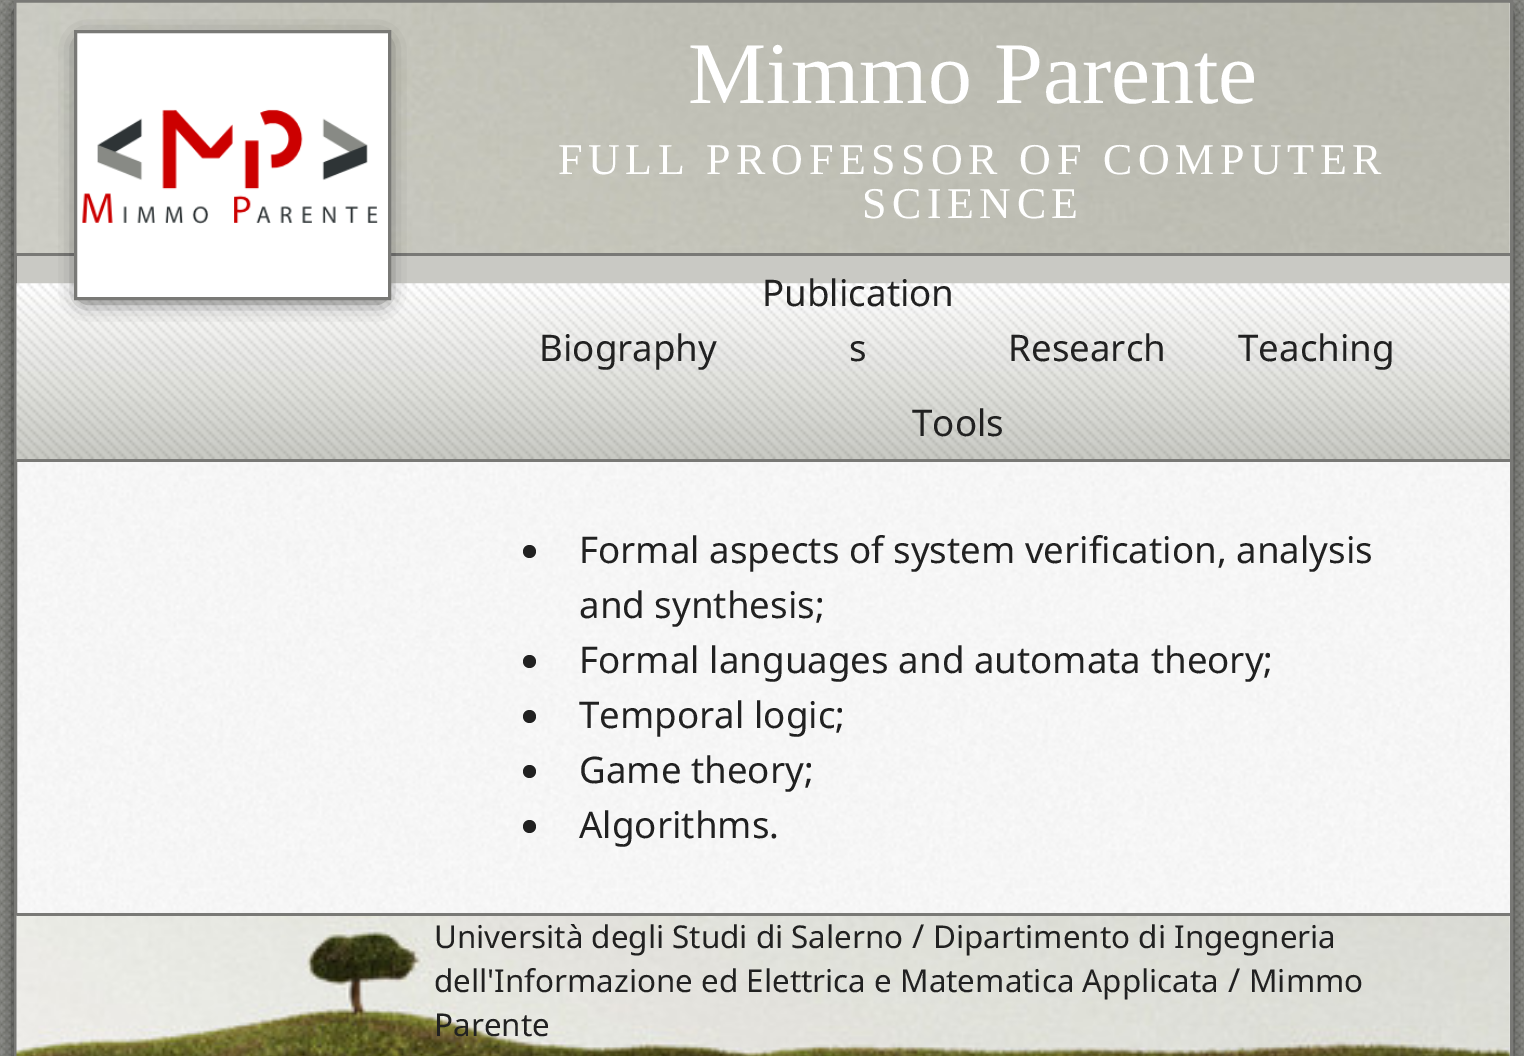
%!PS
<< /PageSize [1524 1056] /PageUsesTransparency true >> setpagedevice
/alpha { dup .setfillconstantalpha .setstrokeconstantalpha } def
/roundrect { 5 dict begin { /r /h /w /y /x } { exch def } forall
  x r add y moveto x w add y 2 copy h add r arct x w add y h add x 1 index r arct
  x y h add x y r arct x y 2 copy exch w add exch r arct closepath end } def
/shadow { 12 dict begin { /a /b /q /h /w /y /x } { exch def } forall gsave /was 0 def
  9 -2 -9 { dup b mul 4 div /e exch def 1 sub .425 mul 2.718 exch exp 1 add a .99 .min exch div /now exch def
    1 1 now sub 1 was sub div sub alpha /was now def
    w h .min e 2 mul add 0 gt { x e sub y e sub w e 2 mul add h e 2 mul add
      q e add b .6 mul add w h .min 2 div e add .min 0 .max roundrect fill } if } for grestore end } def
/picture { 5 dict begin { /h /w /y /x /name } { exch def } forall
  gsave x y translate w h scale
  w h 8 [w 0 0 h 0 0] name (r) file false 3 colorimage grestore end } def
0 .pushpdf14devicefilter
0 1056 translate 1 -1 scale
4 setmiterlimit
1 setgray
0 0 1524 1056 rectfill
(img1.rgb) 0 0 1524 1056 picture
0 setgray
19 11 1488 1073 0 11 1 shadow
0.988 setgray
17 3 1493 1053 rectfill
(img2.rgb) 17 3 1493 1053 picture
0.475 0.475 0.463 setrgbcolor
3 setlinewidth
15.5 1.5 1496 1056 rectstroke
(img4.rgb) 16 2 1494 251 picture
0.788 0.788 0.769 setrgbcolor
17 256 1493 203 rectfill
(img5.rgb) 16 283 1494 177 picture
0.475 0.475 0.463 setrgbcolor
17 253 1493 3 rectfill
0 setgray
83 44 299 253 0 11 1 shadow
1 setgray
77 33 311 264 rectfill
(img3.rgb) 82 109 296 115 picture
0.475 0.475 0.463 setrgbcolor
75.5 31.5 314 267 rectstroke
/LiberationSerif-Regular [88 0 0 -88 0 0] selectfont
1 setgray
688 103 moveto (Mimmo Parente) show
/LiberationSerif-Regular [44 0 0 -44 0 0] selectfont
558 174 moveto 5.5 0 (FULL PROFESSOR OF COMPUTER) ashow
862 218 moveto 5.5 0 (SCIENCE) ashow
0.475 0.475 0.463 setrgbcolor
17 459 1493 3 rectfill
/NotoSans-Regular [36.7 0 0 -36.7 0 0] selectfont
0.129 setgray
539 361 moveto (Biography) show
762 306 moveto (Publication) show
849 361 moveto (s) show
1008 361 moveto (Research) show
1238 361 moveto (Teaching) show
912 436 moveto (Tools) show
newpath 529.5 551.5 6.5 0 360 arc closepath fill
579 563 moveto (Formal aspects of system verification, analysis) show
579 618 moveto (and synthesis;) show
newpath 529.5 661.5 6.5 0 360 arc closepath fill
579 673 moveto (Formal languages and automata theory;) show
newpath 529.5 716.5 6.5 0 360 arc closepath fill
579 728 moveto (Temporal logic;) show
newpath 529.5 771.5 6.5 0 360 arc closepath fill
579 783 moveto (Game theory;) show
newpath 529.5 826.5 6.5 0 360 arc closepath fill
579 838 moveto (Algorithms.) show
(img6.rgb) 16 915 1494 141 picture
0.475 0.475 0.463 setrgbcolor
17 913 1493 3 rectfill
/NotoSans-Regular [31.4 0 0 -31.4 0 0] selectfont
0.129 setgray
434 948 moveto (Università degli Studi di Salerno) show
/NotoSans-Regular [33 0 0 -33 0 0] selectfont
912 948 moveto (/) show
/NotoSans-Regular [31.4 0 0 -31.4 0 0] selectfont
933 948 moveto (Dipartimento di Ingegneria) show
434 992 moveto (dell'Informazione ed Elettrica e Matematica Applicata) show
/NotoSans-Regular [33 0 0 -33 0 0] selectfont
1228 992 moveto (/) show
/NotoSans-Regular [31.4 0 0 -31.4 0 0] selectfont
1249 992 moveto (Mimmo) show
434 1036 moveto (Parente) show
.poppdf14devicefilter showpage
